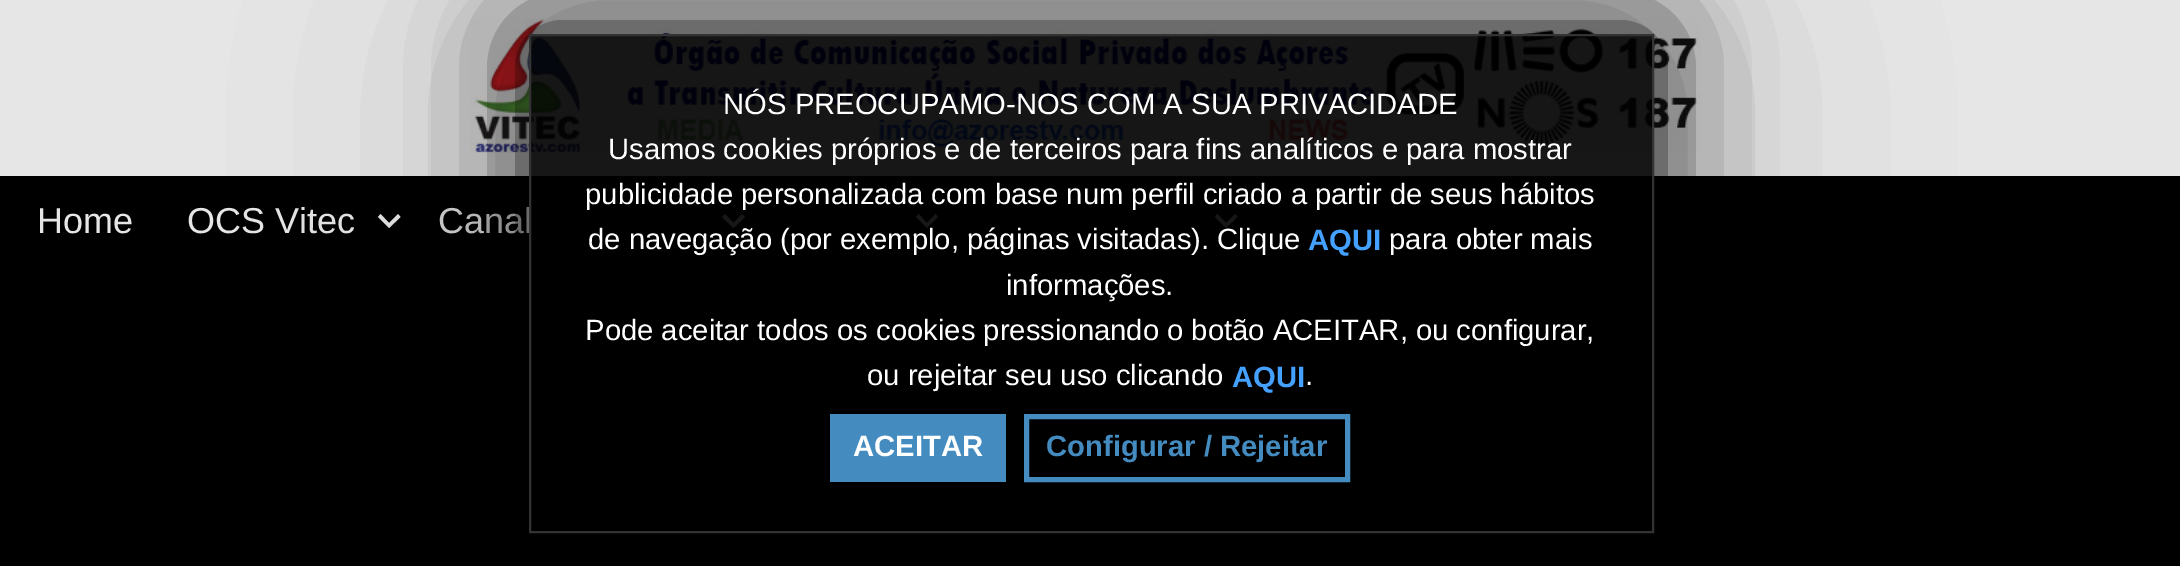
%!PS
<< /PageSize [2180 566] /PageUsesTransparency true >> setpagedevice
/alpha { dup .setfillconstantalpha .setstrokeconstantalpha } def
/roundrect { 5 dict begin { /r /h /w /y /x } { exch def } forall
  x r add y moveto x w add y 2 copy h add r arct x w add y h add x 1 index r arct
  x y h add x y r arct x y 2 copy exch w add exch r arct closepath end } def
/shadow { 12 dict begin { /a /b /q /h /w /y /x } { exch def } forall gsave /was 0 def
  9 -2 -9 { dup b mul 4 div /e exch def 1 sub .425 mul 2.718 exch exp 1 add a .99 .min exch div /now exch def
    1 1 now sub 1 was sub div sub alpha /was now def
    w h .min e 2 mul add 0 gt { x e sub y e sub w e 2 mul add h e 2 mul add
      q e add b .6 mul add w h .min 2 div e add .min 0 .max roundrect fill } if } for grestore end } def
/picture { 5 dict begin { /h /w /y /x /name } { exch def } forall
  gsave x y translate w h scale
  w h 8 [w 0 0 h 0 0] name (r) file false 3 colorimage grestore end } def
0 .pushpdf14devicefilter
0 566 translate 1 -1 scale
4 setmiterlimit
0.902 setgray
0 0 2180 566 rectfill
(img1.rgb) 470 18 1231 135 picture
0 setgray
0 176 2180 390 rectfill
/LiberationSans-Regular [36 0 0 -36 0 0] selectfont
0.902 setgray
37 233 moveto (Home) show
187 233 moveto (OCS Vitec) show
newpath 380.5 214 moveto 389 223 lineto 398 214 lineto 400.5 217 lineto 389 228 lineto 378 217 lineto closepath fill
438 233 moveto (Canal) show
newpath 725 214 moveto 733.5 223 lineto 742 214 lineto 745 217 lineto 733.5 228 lineto 722 217 lineto closepath fill
newpath 918.5 214 moveto 927 223 lineto 935.5 214 lineto 938 217 lineto 927 228 lineto 916 217 lineto closepath fill
newpath 1217.5 214 moveto 1226 223 lineto 1235 214 lineto 1237.5 217 lineto 1226 228 lineto 1215 217 lineto closepath fill
gsave
newpath 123 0 moveto 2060 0 lineto 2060 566 lineto 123 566 lineto closepath 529 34 moveto 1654 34 lineto 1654 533 lineto 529 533 lineto closepath eoclip newpath
0 setgray
529 34 1125 499 0 135 0.3 shadow
grestore
gsave
newpath 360 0 moveto 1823 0 lineto 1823 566 lineto 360 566 lineto closepath 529 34 moveto 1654 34 lineto 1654 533 lineto 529 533 lineto closepath eoclip newpath
0 setgray
529 34 1125 499 0 56 0.9 shadow
grestore
0.9 alpha
0 setgray
531 36 1121 192 rectfill
1 alpha
0.2 setgray
2 setlinewidth
530 35 1123 497 rectstroke
/LiberationSans-Regular [29.25 0 0 -29.25 0 0] selectfont
1 setgray
723 114 moveto (NÓS PREOCUPAMO-NOS COM A SUA PRIVACIDADE) show
608 159 moveto (Usamos cookies próprios e de terceiros para fins analíticos e para mostrar) show
585 204 moveto (publicidade personalizada com base num perfil criado a partir de seus hábitos) show
588 249 moveto (de navegação \(por exemplo, páginas visitadas\). Clique) show
/LiberationSans-Bold [29.25 0 0 -29.25 0 0] selectfont
0.271 0.631 1 setrgbcolor
1308 250 moveto (AQUI) show
/LiberationSans-Regular [29.25 0 0 -29.25 0 0] selectfont
1 setgray
1389 249 moveto (para obter mais) show
1006 295 moveto (informações.) show
585 340 moveto (Pode aceitar todos os cookies pressionando o botão ACEITAR, ou configurar,) show
867 385 moveto (ou rejeitar seu uso clicando) show
/LiberationSans-Bold [29.25 0 0 -29.25 0 0] selectfont
0.271 0.631 1 setrgbcolor
1232 387 moveto (AQUI) show
/LiberationSans-Regular [29.25 0 0 -29.25 0 0] selectfont
1 setgray
1305 385 moveto (.) show
0.267 0.545 0.753 setrgbcolor
830 414 176 68 rectfill
/LiberationSans-Bold [29.25 0 0 -29.25 0 0] selectfont
1 setgray
853 456 moveto (ACEITAR) show
0.267 0.545 0.753 setrgbcolor
5 setlinewidth
1026.5 416.5 321 63 rectstroke
1046 456 moveto (Configurar / Rejeitar) show
.poppdf14devicefilter showpage
